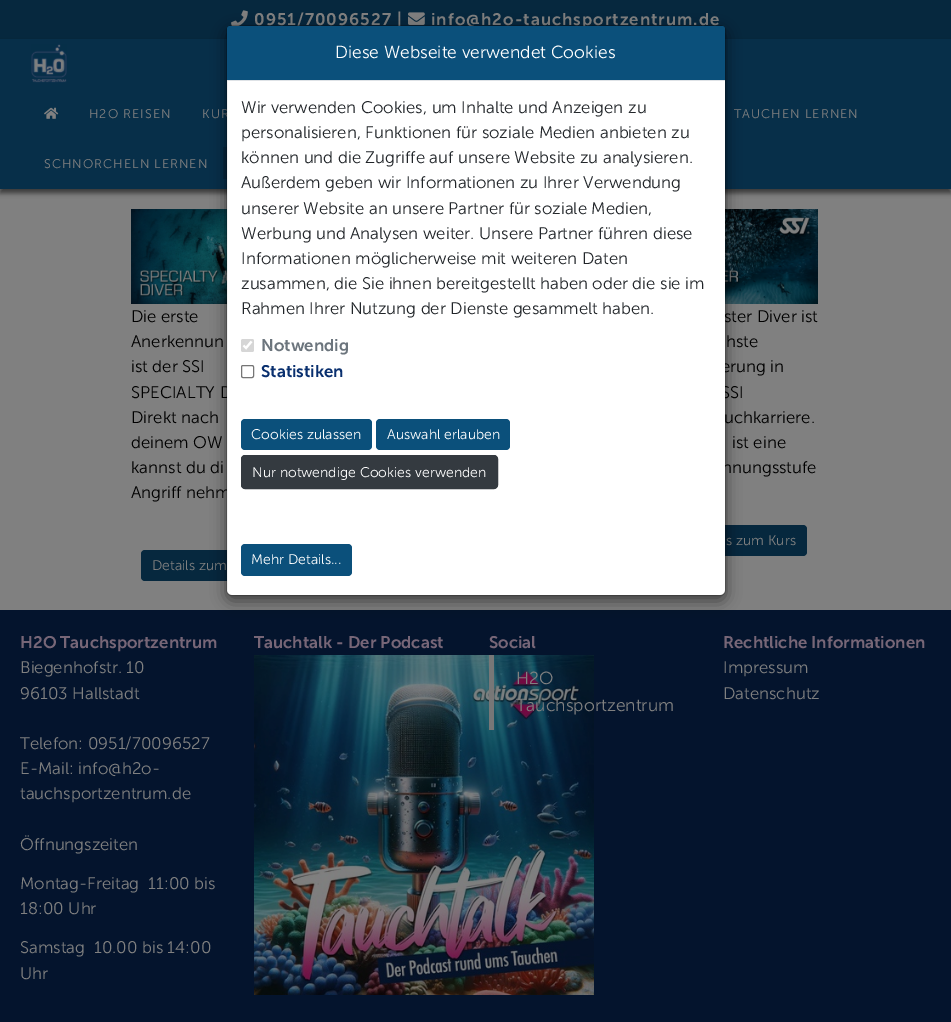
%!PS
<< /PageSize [951 1022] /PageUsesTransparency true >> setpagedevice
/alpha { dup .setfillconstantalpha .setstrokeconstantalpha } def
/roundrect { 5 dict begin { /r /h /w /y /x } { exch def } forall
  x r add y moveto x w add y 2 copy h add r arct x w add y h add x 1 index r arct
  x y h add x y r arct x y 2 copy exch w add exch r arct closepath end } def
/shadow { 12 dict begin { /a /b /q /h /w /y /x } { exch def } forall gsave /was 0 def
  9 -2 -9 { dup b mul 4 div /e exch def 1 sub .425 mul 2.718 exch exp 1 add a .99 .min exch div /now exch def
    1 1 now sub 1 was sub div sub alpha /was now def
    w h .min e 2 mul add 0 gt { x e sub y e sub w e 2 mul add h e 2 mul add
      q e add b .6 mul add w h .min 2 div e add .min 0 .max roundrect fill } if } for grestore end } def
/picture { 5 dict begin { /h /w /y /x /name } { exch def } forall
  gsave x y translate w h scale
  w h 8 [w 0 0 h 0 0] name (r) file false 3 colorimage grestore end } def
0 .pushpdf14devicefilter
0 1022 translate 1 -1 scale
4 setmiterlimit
0.024 0.157 0.243 setrgbcolor
0 0 951 1022 rectfill
(img1.rgb) 231 10 17 16 picture
/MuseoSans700-SemiBold [16.8 0 0 -16.8 0 0] selectfont
0.502 setgray
254 25 moveto 1 0 (0951/70096527 |) ashow
(img2.rgb) 408 12 17 13 picture
431 25 moveto 1 0 (info@h2o-tauchsportzentrum.de) ashow
0 189 951 421 rectfill
0 setgray
0 43 951 150 0 2.5 0.54 shadow
0.027 0.184 0.286 setrgbcolor
0 39 951 150 rectfill
(img3.rgb) 31 44 36 39 picture
(img4.rgb) 44 107 15 12 picture
/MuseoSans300-Light [12.6 0 0 -12.6 0 0] selectfont
0.502 setgray
89 118 moveto 1 0 (H2O REISEN) ashow
202 118 moveto 1 0 (KUR) ashow
734 118 moveto 1 0 (TAUCHEN LERNEN) ashow
44 168 moveto 1 0 (SCHNORCHELN LERNEN) ashow
0.024 0.157 0.243 setrgbcolor
223 147 4 32 rectfill
(img5.rgb) 131 209 96 95 picture
/MuseoSans300-Light [16.8 0 0 -16.8 0 0] selectfont
0 setgray
131 322 moveto (Die erste) show
131 347 moveto (Anerkennun) show
131 372 moveto (ist der SSI) show
131 398 moveto (SPECIALTY D) show
131 423 moveto (Direkt nach) show
131 448 moveto (deinem OW) show
131 473 moveto (kannst du di) show
131 498 moveto (Angriff nehm) show
0.024 0.157 0.243 setrgbcolor
141 550 128 31 4 roundrect fill
/MuseoSans300-Light [14 0 0 -14 0 0] selectfont
0.502 setgray
152 570 moveto (Details zum) show
(img6.rgb) 725 209 93 95 picture
/MuseoSans300-Light [16.8 0 0 -16.8 0 0] selectfont
0 setgray
724 322 moveto (ster Diver ist) show
726 347 moveto (hste) show
721 372 moveto (erung in) show
721 398 moveto (SSI) show
724 423 moveto (uchkarriere.) show
732 448 moveto (ist eine) show
722 473 moveto (nnungsstufe) show
0.024 0.157 0.243 setrgbcolor
679 525 128 31 4 roundrect fill
/MuseoSans300-Light [14 0 0 -14 0 0] selectfont
0.502 setgray
726 545 moveto (s zum Kurs) show
0.016 0.078 0.176 setrgbcolor
0 610 951 412 rectfill
/MuseoSans700-SemiBold [16.8 0 0 -16.8 0 0] selectfont
0.467 0.4 0.467 setrgbcolor
20 648 moveto (H2O Tauchsportzentrum) show
/MuseoSans300-Light [16.8 0 0 -16.8 0 0] selectfont
0.502 setgray
20 673 moveto (Biegenhofstr. 10) show
20 699 moveto (96103 Hallstadt) show
20 749 moveto (Telefon: 0951/70096527) show
20 774 moveto (E-Mail: info@h2o-) show
20 799 moveto (tauchsportzentrum.de) show
20 850 moveto (Öffnungszeiten) show
20 889 moveto (Montag-Freitag  11:00 bis) show
20 914 moveto (18:00 Uhr) show
20 953 moveto (Samstag  10.00 bis 14:00) show
20 979 moveto (Uhr) show
/MuseoSans700-SemiBold [16.8 0 0 -16.8 0 0] selectfont
0.467 0.4 0.467 setrgbcolor
254 648 moveto (Tauchtalk - Der Podcast) show
(img7.rgb) 254 655 340 340 picture
489 648 moveto (Social) show
0.467 setgray
489 655 5 75 rectfill
/MuseoSans300-Light [17.5 0 0 -17.5 0 0] selectfont
0.502 setgray
516 684 moveto (H2O) show
516 711 moveto (Tauchsportzentrum) show
/MuseoSans700-SemiBold [16.8 0 0 -16.8 0 0] selectfont
0.467 0.4 0.467 setrgbcolor
723 648 moveto (Rechtliche Informationen) show
/MuseoSans300-Light [16.8 0 0 -16.8 0 0] selectfont
0.502 setgray
723 673 moveto (Impressum) show
723 699 moveto (Datenschutz) show
0 setgray
226 30 500 571 6 7.5 0.5 shadow
1 setgray
227 26 498 569 5 roundrect fill
0.2 alpha
0 setgray
226.5 25.5 499 570 5.5 roundrect stroke
1 alpha
0.043 0.314 0.482 setrgbcolor
newpath 230 26 moveto 722 26 lineto 723.5 26 725 27.5 725 29 curveto 725 81 lineto 227 81 lineto 227 29 lineto 227 27.5 228.5 26 230 26 curveto closepath fill
0.871 0.886 0.902 setrgbcolor
227 80 498 1 rectfill
/MuseoSans300-Light [17.5 0 0 -17.5 0 0] selectfont
1 setgray
335 58 moveto (Diese Webseite verwendet Cookies) show
/MuseoSans300-Light [16.8 0 0 -16.8 0 0] selectfont
0.129 0.145 0.161 setrgbcolor
241 113 moveto (Wir verwenden Cookies, um Inhalte und Anzeigen zu) show
241 138 moveto (personalisieren, Funktionen für soziale Medien anbieten zu) show
241 163 moveto (können und die Zugriffe auf unsere Website zu analysieren.) show
241 188 moveto (Außerdem geben wir Informationen zu Ihrer Verwendung) show
241 214 moveto (unserer Website an unsere Partner für soziale Medien,) show
241 239 moveto (Werbung und Analysen weiter. Unsere Partner führen diese) show
241 264 moveto (Informationen möglicherweise mit weiteren Daten) show
241 289 moveto (zusammen, die Sie ihnen bereitgestellt haben oder die sie im) show
241 314 moveto (Rahmen Ihrer Nutzung der Dienste gesammelt haben.) show
0.839 setgray
241 339 13 13 2 roundrect fill
1 setgray
2.1 setlinewidth
newpath 243.5 345.5 moveto 246 348 lineto 251.5 341.5 lineto stroke
/MuseoSans700-SemiBold [16.8 0 0 -16.8 0 0] selectfont
0.424 0.459 0.49 setrgbcolor
261 351 moveto (Notwendig) show
0.463 setgray
1 setlinewidth
241.5 365.5 12 12 1.5 roundrect stroke
0.039 0.188 0.435 setrgbcolor
261 377 moveto (Statistiken) show
0.043 0.314 0.482 setrgbcolor
241 419 131 31 4 roundrect fill
/MuseoSans300-Light [14 0 0 -14 0 0] selectfont
1 setgray
251 439 moveto (Cookies zulassen) show
0.043 0.314 0.482 setrgbcolor
376 419 134 31 4 roundrect fill
1 setgray
387 439 moveto (Auswahl erlauben) show
0.204 0.227 0.251 setrgbcolor
241.5 455.5 256 33 3.5 roundrect gsave fill grestore
stroke
1 setgray
252 477 moveto (Nur notwendige Cookies verwenden) show
0.043 0.314 0.482 setrgbcolor
241 544 111 32 4 roundrect fill
1 setgray
251 564 moveto (Mehr Details...) show
.poppdf14devicefilter showpage
